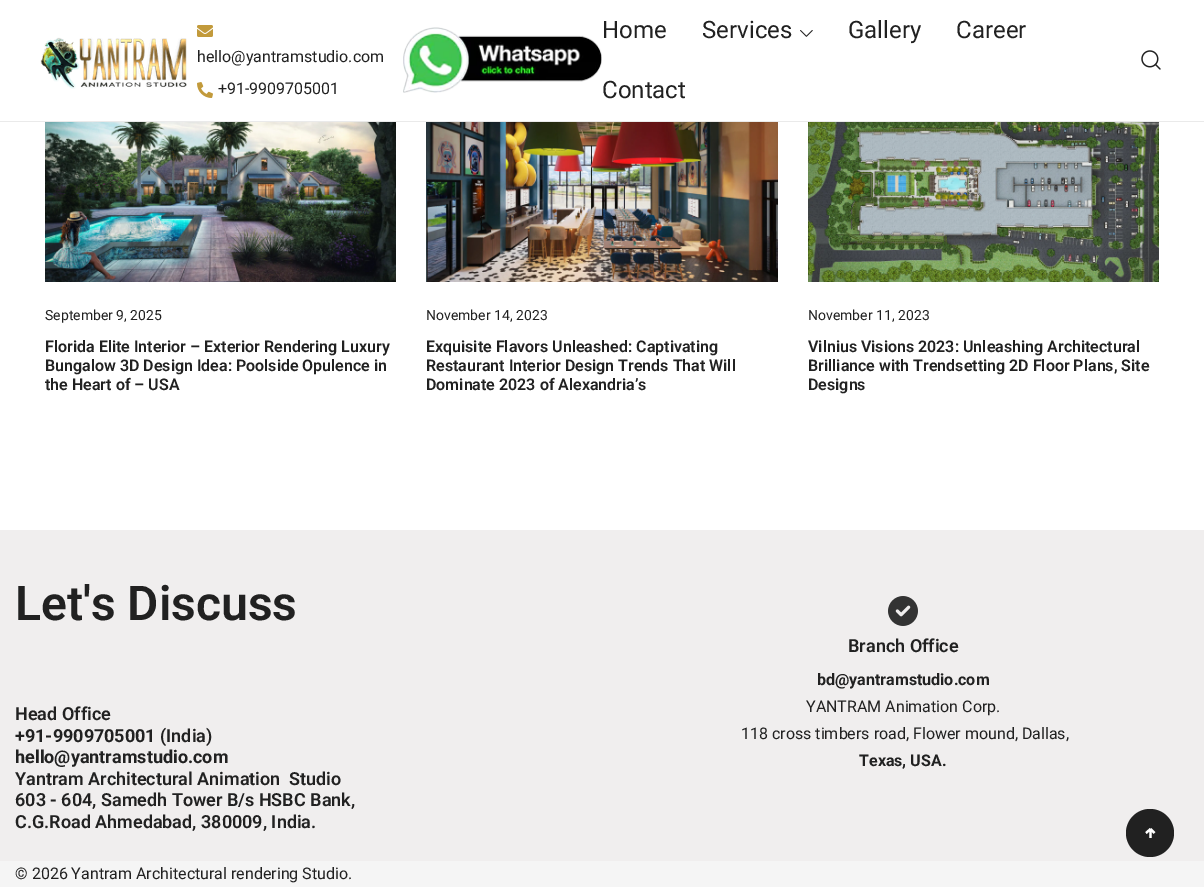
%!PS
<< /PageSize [1204 887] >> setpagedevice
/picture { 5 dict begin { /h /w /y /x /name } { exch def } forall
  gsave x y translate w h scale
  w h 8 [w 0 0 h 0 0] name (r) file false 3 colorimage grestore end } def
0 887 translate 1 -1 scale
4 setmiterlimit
1 setgray
0 0 1204 887 rectfill
0.918 setgray
0 121 1204 1 rectfill
(img1.rgb) 40 37 147 52 picture
(img2.rgb) 197 25 16 12 picture
/Roboto-Regular [16 0 0 -16 0 0] selectfont
0.129 setgray
197 62 moveto (hello@yantramstudio.com) show
(img3.rgb) 197 82 16 16 picture
218 94 moveto (+91-9909705001) show
(img4.rgb) 403 27 199 66 picture
/Roboto-Regular [24 0 0 -24 0 0] selectfont
602 38 moveto (Home) show
702 38 moveto (Services) show
(img5.rgb) 800 30 13 7 picture
848 38 moveto (Gallery) show
956 38 moveto (Career) show
602 98 moveto (Contact) show
(img6.rgb) 1141 50 20 20 picture
(img7.rgb) 45 122 351 160 picture
/Roboto-Regular [14 0 0 -14 0 0] selectfont
45 320 moveto (September 9, 2025) show
/Roboto-SemiBold [16 0 0 -16 0 0] selectfont
45 352 moveto (Florida Elite Interior – Exterior Rendering Luxury) show
45 371 moveto (Bungalow 3D Design Idea: Poolside Opulence in) show
45 390 moveto (the Heart of – USA) show
(img8.rgb) 426 122 352 160 picture
/Roboto-Regular [14 0 0 -14 0 0] selectfont
426 320 moveto (November 14, 2023) show
/Roboto-SemiBold [16 0 0 -16 0 0] selectfont
426 352 moveto (Exquisite Flavors Unleashed: Captivating) show
426 371 moveto (Restaurant Interior Design Trends That Will) show
426 390 moveto (Dominate 2023 of Alexandria’s) show
(img9.rgb) 808 122 351 160 picture
/Roboto-Regular [14 0 0 -14 0 0] selectfont
808 320 moveto (November 11, 2023) show
/Roboto-SemiBold [16 0 0 -16 0 0] selectfont
808 352 moveto (Vilnius Visions 2023: Unleashing Architectural) show
808 371 moveto (Brilliance with Trendsetting 2D Floor Plans, Site) show
808 390 moveto (Designs) show
0.941 0.933 0.933 setrgbcolor
0 530 1204 331 rectfill
/Roboto-SemiBold [48 0 0 -48 0 0] selectfont
0.129 setgray
15 620 moveto (Let's Discuss) show
/Roboto-SemiBold [18 0 0 -18 0 0] selectfont
15 720 moveto (Head Office) show
/Roboto-Bold [18 0 0 -18 0 0] selectfont
15 742 moveto (+91-9909705001) show
/Roboto-SemiBold [18 0 0 -18 0 0] selectfont
160 742 moveto (\(India\)) show
/Roboto-Bold [18 0 0 -18 0 0] selectfont
15 763 moveto (hello@yantramstudio.com) show
/Roboto-SemiBold [18 0 0 -18 0 0] selectfont
15 785 moveto (Yantram Architectural Animation  Studio) show
15 806 moveto (603 - 604, Samedh Tower B/s HSBC Bank,) show
15 828 moveto (C.G.Road Ahmedabad, 380009, India.) show
(img10.rgb) 888 596 30 30 picture
848 652 moveto (Branch Office) show
/Roboto-Bold [16 0 0 -16 0 0] selectfont
817 685 moveto (bd@yantramstudio.com) show
/Roboto-Regular [16 0 0 -16 0 0] selectfont
806 712 moveto (YANTRAM Animation Corp.) show
741 739 moveto (118 cross timbers road, Flower mound, Dallas,) show
/Roboto-Bold [16 0 0 -16 0 0] selectfont
859 766 moveto (Texas, USA.) show
0.961 setgray
0 861 1204 26 rectfill
/Roboto-Regular [16 0 0 -16 0 0] selectfont
0.129 setgray
15 879 moveto (© 2026 Yantram Architectural rendering Studio.) show
newpath 1150 833 24 0 360 arc closepath fill
1 setgray
2.2 setlinewidth
1 setlinejoin
newpath 1146 833 moveto 1150.5 829 lineto 1150.5 829 moveto 1154.5 833 lineto 1150.5 829 moveto 1150.5 838 lineto stroke
showpage
